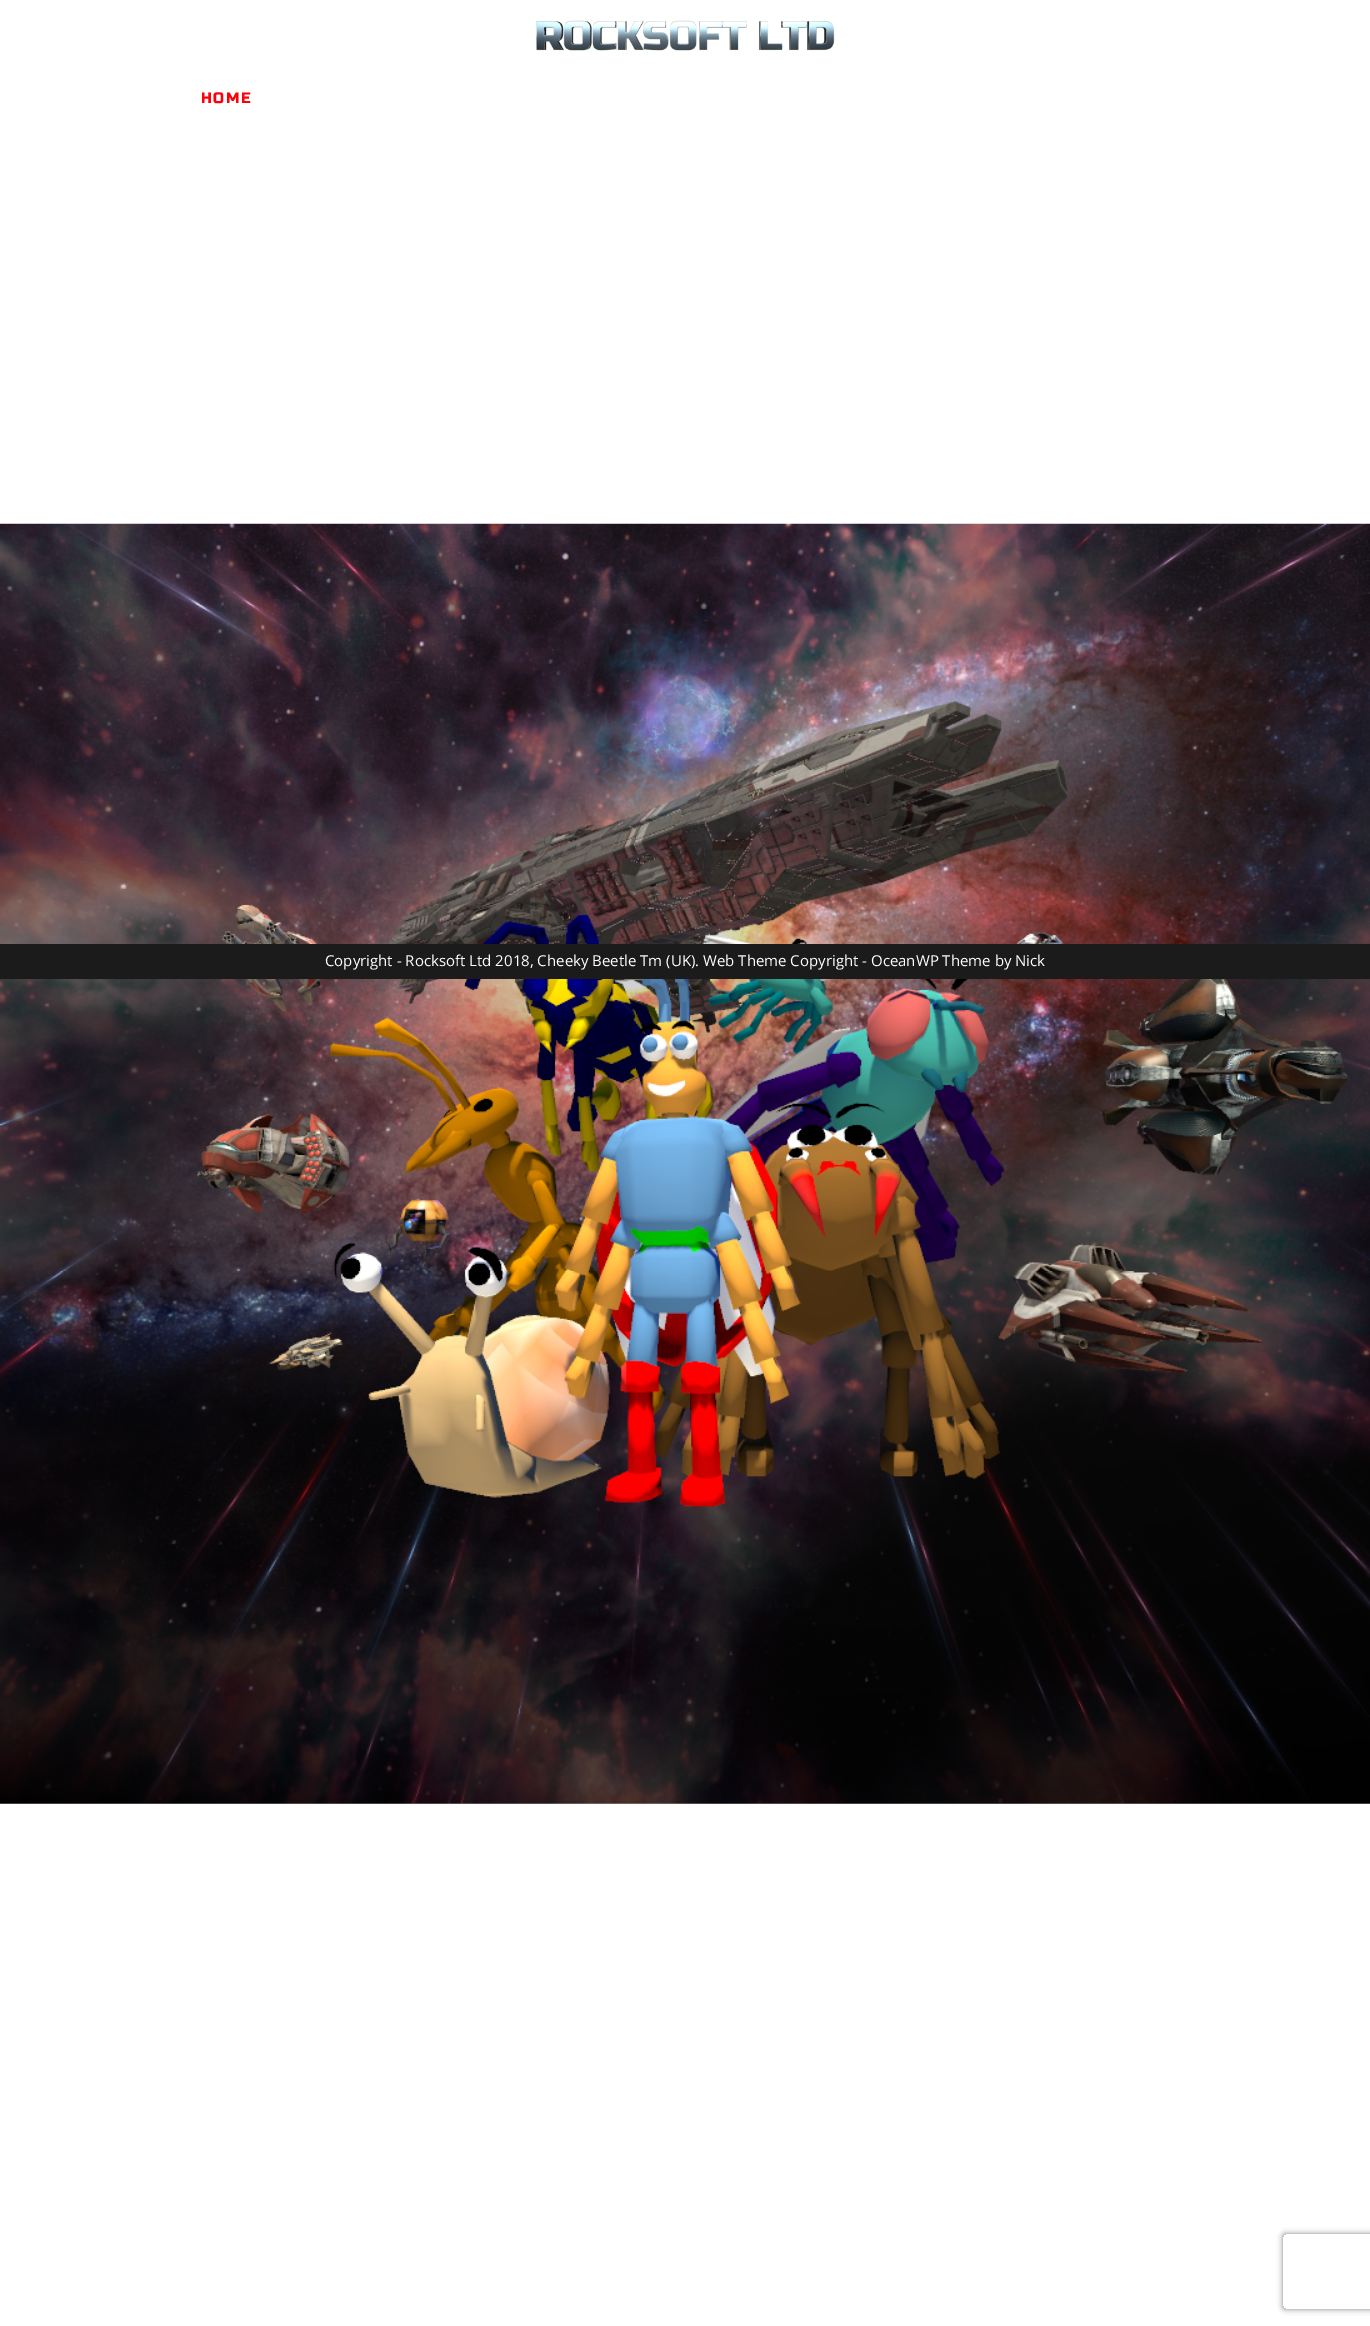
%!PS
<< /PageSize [1370 2326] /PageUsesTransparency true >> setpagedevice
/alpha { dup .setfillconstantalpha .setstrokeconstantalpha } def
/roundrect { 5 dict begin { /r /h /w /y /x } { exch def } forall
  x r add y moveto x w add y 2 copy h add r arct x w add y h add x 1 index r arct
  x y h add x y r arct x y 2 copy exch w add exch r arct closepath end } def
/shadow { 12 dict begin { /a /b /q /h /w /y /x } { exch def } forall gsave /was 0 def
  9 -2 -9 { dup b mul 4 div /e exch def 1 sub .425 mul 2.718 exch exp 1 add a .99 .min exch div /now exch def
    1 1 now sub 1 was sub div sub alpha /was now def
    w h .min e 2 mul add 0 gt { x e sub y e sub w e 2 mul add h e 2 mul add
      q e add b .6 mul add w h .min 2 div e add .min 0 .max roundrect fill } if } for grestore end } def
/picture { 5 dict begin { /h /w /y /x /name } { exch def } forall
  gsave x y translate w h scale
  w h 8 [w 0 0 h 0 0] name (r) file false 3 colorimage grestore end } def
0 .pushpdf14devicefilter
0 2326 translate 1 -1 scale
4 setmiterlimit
1 setgray
0 0 1370 2326 rectfill
(img1.rgb) 0 523 1370 1281 picture
(img2.rgb) 536 20 299 31 picture
/RussoOne-Regular [15 0 0 -15 0 0] selectfont
1 0 0.031 setrgbcolor
201 103 moveto 1.5 0 (HOME) ashow
0.106 setgray
0 944 1370 35 rectfill
/OpenSans-Regular [15 0 0 -15 0 0] selectfont
1 setgray
325 966 moveto (Copyright - Rocksoft Ltd 2018, Cheeky Beetle Tm \(UK\). Web Theme Copyright - OceanWP Theme by Nick) show
gsave
newpath 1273 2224 moveto 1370 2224 lineto 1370 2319 lineto 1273 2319 lineto closepath 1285.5 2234 moveto 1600.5 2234 lineto 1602 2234 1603 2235 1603 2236.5 curveto 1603 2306.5 lineto 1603 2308 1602 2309 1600.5 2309 curveto 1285.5 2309 lineto 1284 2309 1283 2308 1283 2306.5 curveto 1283 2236.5 lineto 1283 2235 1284 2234 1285.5 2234 curveto closepath eoclip newpath
0.502 setgray
1283 2234 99 75 2.5 3 1 shadow
grestore
.poppdf14devicefilter showpage
